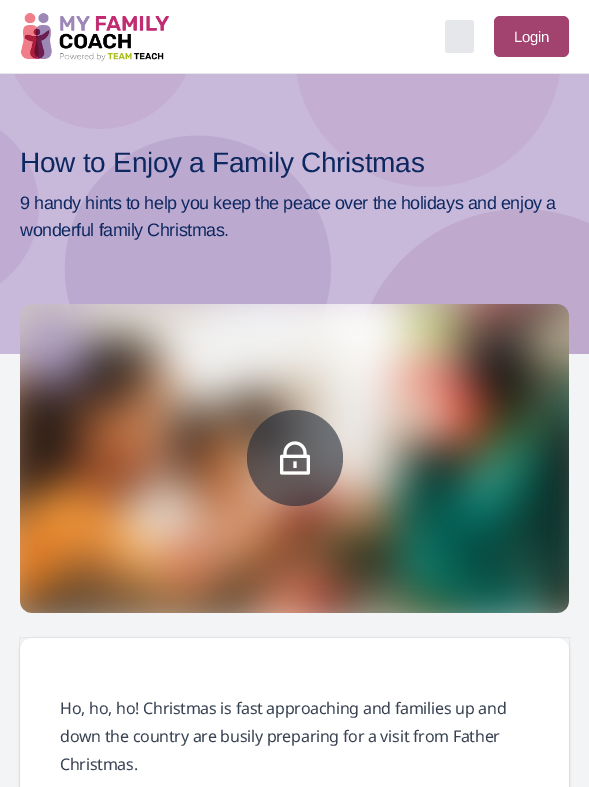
%!PS
<< /PageSize [589 787] /PageUsesTransparency true >> setpagedevice
/alpha { dup .setfillconstantalpha .setstrokeconstantalpha } def
/roundrect { 5 dict begin { /r /h /w /y /x } { exch def } forall
  x r add y moveto x w add y 2 copy h add r arct x w add y h add x 1 index r arct
  x y h add x y r arct x y 2 copy exch w add exch r arct closepath end } def
/shadow { 12 dict begin { /a /b /q /h /w /y /x } { exch def } forall gsave /was 0 def
  9 -2 -9 { dup b mul 4 div /e exch def 1 sub .425 mul 2.718 exch exp 1 add a .99 .min exch div /now exch def
    1 1 now sub 1 was sub div sub alpha /was now def
    w h .min e 2 mul add 0 gt { x e sub y e sub w e 2 mul add h e 2 mul add
      q e add b .6 mul add w h .min 2 div e add .min 0 .max roundrect fill } if } for grestore end } def
/picture { 5 dict begin { /h /w /y /x /name } { exch def } forall
  gsave x y translate w h scale
  w h 8 [w 0 0 h 0 0] name (r) file false 3 colorimage grestore end } def
0 .pushpdf14devicefilter
0 787 translate 1 -1 scale
4 setmiterlimit
0.953 0.957 0.965 setrgbcolor
0 0 589 787 rectfill
1 setgray
0 0 589 73 rectfill
0.898 0.906 0.922 setrgbcolor
0 73 589 1 rectfill
(img1.rgb) 20 13 149 49 picture
445 20 29 33 3 roundrect fill
0.635 0.259 0.435 setrgbcolor
494 16 75 41 6 roundrect fill
/LiberationSans-Regular [15 0 0 -15 0 0] selectfont
1 setgray
514 42 moveto -0.25 0 (Login) ashow
(img2.rgb) 0 74 589 280 picture
/LiberationSans-Regular [28 0 0 -28 0 0] selectfont
0.051 0.157 0.376 setrgbcolor
20 172 moveto -0.25 0 (How to Enjoy a Family Christmas) ashow
/LiberationSans-Regular [18 0 0 -18 0 0] selectfont
20 209 moveto -0.45 0 (9 handy hints to help you keep the peace over the holidays and enjoy a) ashow
20 236 moveto -0.45 0 (wonderful family Christmas.) ashow
(img3.rgb) 20 304 549 309 picture
0.6 alpha
0.122 0.161 0.216 setrgbcolor
newpath 295 458 48 0 360 arc closepath fill
1 alpha
(img4.rgb) 280 441 30 34 picture
0 setgray
20 639 549 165 12 1.5 0.1 shadow
0.05 alpha
19.5 637.5 550 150 rectstroke
1 alpha
1 setgray
20 638 549 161 12 roundrect fill
/NotoSans-Regular [16 0 0 -16 0 0] selectfont
0.216 0.255 0.318 setrgbcolor
60 714 moveto -0.25 0 (Ho, ho, ho! Christmas is fast approaching and families up and) ashow
60 742 moveto -0.25 0 (down the country are busily preparing for a visit from Father) ashow
60 770 moveto -0.25 0 (Christmas.) ashow
.poppdf14devicefilter showpage
